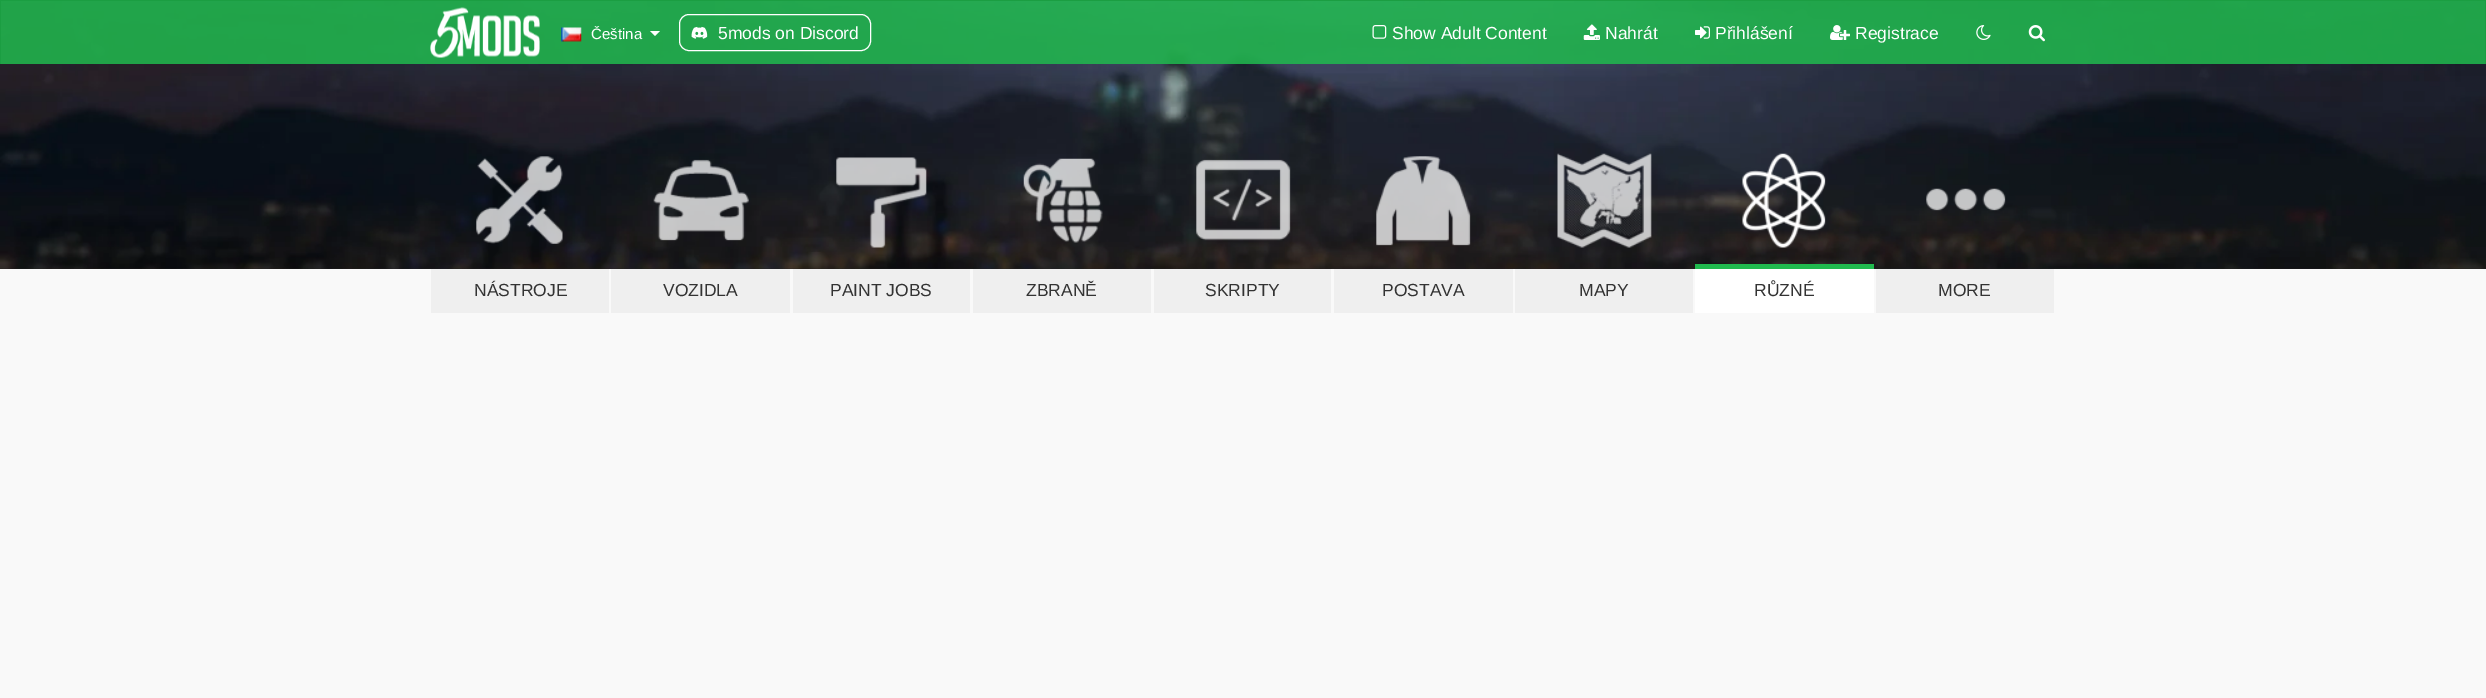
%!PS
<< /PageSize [2486 698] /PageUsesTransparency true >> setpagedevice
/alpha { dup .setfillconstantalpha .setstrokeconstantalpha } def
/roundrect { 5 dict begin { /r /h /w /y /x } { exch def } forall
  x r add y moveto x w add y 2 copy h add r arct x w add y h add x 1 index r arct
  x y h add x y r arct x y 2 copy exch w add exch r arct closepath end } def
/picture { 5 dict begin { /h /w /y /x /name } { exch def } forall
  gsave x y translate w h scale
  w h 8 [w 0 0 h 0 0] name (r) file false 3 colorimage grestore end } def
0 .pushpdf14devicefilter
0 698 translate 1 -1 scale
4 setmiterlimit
0.976 setgray
0 0 2486 698 rectfill
(img10.rgb) 0 1 2486 268 picture
0.85 alpha
0.125 0.729 0.306 setrgbcolor
1 1 2484 63 rectfill
1 alpha
0.106 0.62 0.259 setrgbcolor
0 0 2486 1 rectfill
2485 0 1 64 rectfill
0 0 1 64 rectfill
(img1.rgb) 430 7 110 51 picture
(img2.rgb) 561 27 21 15 picture
/LiberationSans-Regular [15 0 0 -15 0 0] selectfont
1 setgray
591 39 moveto (Čeština) show
newpath 650 31 moveto 660 31 lineto 655 36 lineto closepath fill
679.5 14.5 191 36 9.5 roundrect stroke
(img3.rgb) 691 26 17 13 picture
/LiberationSans-Regular [17.5 0 0 -17.5 0 0] selectfont
718 39 moveto (5mods on Discord) show
(img4.rgb) 1372 25 15 14 picture
1392 39 moveto (Show Adult Content) show
(img5.rgb) 1583 24 17 16 picture
1605 39 moveto (Nahrát) show
(img6.rgb) 1695 26 15 13 picture
1715 39 moveto (Přihlášení) show
(img7.rgb) 1830 25 20 15 picture
1855 39 moveto (Registrace) show
(img8.rgb) 1976 25 15 15 picture
(img9.rgb) 2028 25 17 17 picture
(img11.rgb) 476 156 87 88 picture
0.937 setgray
431 269 178 44 rectfill
0.2 setgray
474 296 moveto (NÁSTROJE) show
(img12.rgb) 653 159 96 82 picture
0.937 setgray
611 269 179 44 rectfill
0.2 setgray
663 296 moveto (VOZIDLA) show
(img13.rgb) 836 157 91 91 picture
0.937 setgray
793 269 177 44 rectfill
0.2 setgray
830 296 moveto (PAINT JOBS) show
(img14.rgb) 1023 158 80 85 picture
0.937 setgray
973 269 178 44 rectfill
0.2 setgray
1026 296 moveto (ZBRANĚ) show
(img15.rgb) 1196 159 95 82 picture
0.937 setgray
1154 269 177 44 rectfill
0.2 setgray
1205 296 moveto (SKRIPTY) show
(img16.rgb) 1376 156 95 90 picture
0.937 setgray
1334 269 179 44 rectfill
0.2 setgray
1382 296 moveto (POSTAVA) show
(img17.rgb) 1557 153 95 95 picture
0.937 setgray
1515 269 178 44 rectfill
0.2 setgray
1579 296 moveto (MAPY) show
(img18.rgb) 1742 153 84 95 picture
0.125 0.729 0.306 setrgbcolor
1695 264 179 5 rectfill
1 setgray
1695 269 179 44 rectfill
0.2 setgray
1754 296 moveto (RŮZNÉ) show
(img19.rgb) 1926 188 80 23 picture
0.937 setgray
1876 269 178 44 rectfill
0.2 setgray
1938 296 moveto (MORE) show
.poppdf14devicefilter showpage
